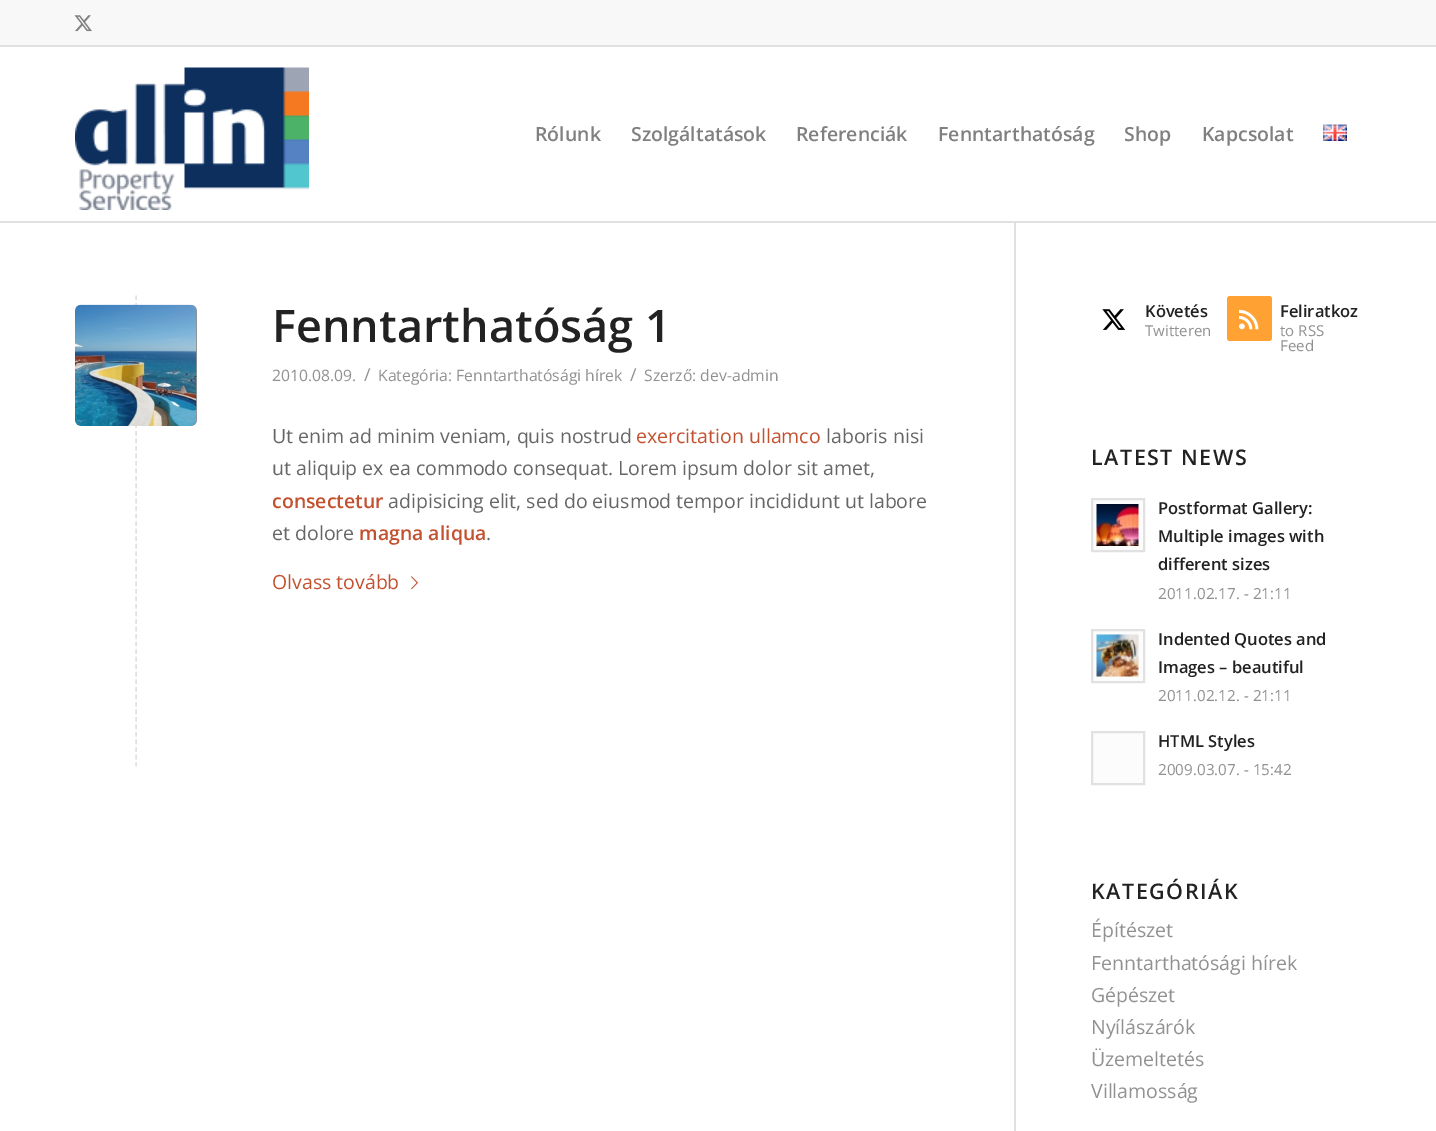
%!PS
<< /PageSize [1436 1131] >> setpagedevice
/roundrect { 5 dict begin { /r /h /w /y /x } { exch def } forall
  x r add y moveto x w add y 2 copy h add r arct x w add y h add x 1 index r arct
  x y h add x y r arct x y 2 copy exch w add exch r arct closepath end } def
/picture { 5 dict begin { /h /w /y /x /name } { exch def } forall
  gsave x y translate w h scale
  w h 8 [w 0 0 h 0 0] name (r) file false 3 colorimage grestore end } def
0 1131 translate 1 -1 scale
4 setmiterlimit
1 setgray
0 0 1436 1131 rectfill
0.973 setgray
0 0 1436 45 rectfill
0.882 setgray
0 45 1436 2 rectfill
(img1.rgb) 74 15 18 17 picture
1014 221 2 910 rectfill
0 221 1436 2 rectfill
(img2.rgb) 75 67 234 143 picture
/OpenSans-SemiBold [19.5 0 0 -19.5 0 0] selectfont
0.502 setgray
535 141 moveto (Rólunk) show
631 141 moveto (Szolgáltatások) show
796 141 moveto (Referenciák) show
938 141 moveto (Fenntarthatóság) show
1124 141 moveto (Shop) show
1202 141 moveto (Kapcsolat) show
(img3.rgb) 1323 124 24 17 picture
0.882 setgray
1.5 setlinewidth
[4.5 3.03] 0 setdash
newpath 136 295.5 moveto 136 766.5 lineto stroke
0.569 setgray
75 305 122 121 6 roundrect fill
(img4.rgb) 75 304 122 122 picture
/OpenSans-SemiBold [45 0 0 -45 0 0] selectfont
0.133 setgray
272 342 moveto (Fenntarthatóság 1) show
/OpenSans-Regular [15.75 0 0 -15.75 0 0] selectfont
0.569 setgray
272 381 moveto (2010.08.09.) show
/OpenSans-Regular [18 0 0 -18 0 0] selectfont
364 381 moveto (/) show
/OpenSans-Regular [15.75 0 0 -15.75 0 0] selectfont
378 381 moveto (Kategória: Fenntarthatósági hírek) show
/OpenSans-Regular [18 0 0 -18 0 0] selectfont
630 381 moveto (/) show
/OpenSans-Regular [15.75 0 0 -15.75 0 0] selectfont
644 381 moveto (Szerző: dev-admin) show
/OpenSans-Regular [19.5 0 0 -19.5 0 0] selectfont
0.4 setgray
272 443 moveto (Ut enim ad minim veniam, quis nostrud) show
0.765 0.318 0.184 setrgbcolor
636 443 moveto (exercitation ullamco) show
0.4 setgray
826 443 moveto (laboris nisi) show
272 475 moveto (ut aliquip ex ea commodo consequat. Lorem ipsum dolor sit amet,) show
/OpenSans-SemiBold [19.5 0 0 -19.5 0 0] selectfont
0.765 0.318 0.184 setrgbcolor
272 508 moveto (consectetur) show
/OpenSans-Regular [19.5 0 0 -19.5 0 0] selectfont
0.4 setgray
388 508 moveto (adipisicing elit, sed do eiusmod tempor incididunt ut labore) show
272 540 moveto (et dolore) show
/OpenSans-SemiBold [19.5 0 0 -19.5 0 0] selectfont
0.765 0.318 0.184 setrgbcolor
359 540 moveto (magna aliqua) show
/OpenSans-Regular [19.5 0 0 -19.5 0 0] selectfont
0.4 setgray
486 540 moveto (.) show
0.765 0.318 0.184 setrgbcolor
272 589 moveto (Olvass tovább) show
(img5.rgb) 411 576 7 14 picture
(img6.rgb) 1102 309 24 21 picture
/OpenSans-SemiBold [16.5 0 0 -16.5 0 0] selectfont
0.133 setgray
1145 317 moveto (Követés) show
/OpenSans-Regular [15 0 0 -15 0 0] selectfont
0.569 setgray
1145 336 moveto (Twitteren) show
1 0.631 0.2 setrgbcolor
1227 296 45 45 3 roundrect fill
(img7.rgb) 1239 309 20 21 picture
/OpenSans-SemiBold [16.5 0 0 -16.5 0 0] selectfont
0.133 setgray
1280 317 moveto (Feliratkoz) show
/OpenSans-Regular [15 0 0 -15 0 0] selectfont
0.569 setgray
1280 336 moveto (to RSS) show
1280 351 moveto (Feed) show
/OpenSans-SemiBold [21.5 0 0 -21.5 0 0] selectfont
0.133 setgray
1091 465 moveto 1.5 0 (LATEST NEWS) ashow
0.988 setgray
newpath 1092 499 moveto 1144 499 lineto 1144 551 lineto 1092 551 lineto closepath gsave fill grestore
0.882 setgray
2 setlinewidth
[] 0 setdash
stroke
(img8.rgb) 1096 504 43 42 picture
/OpenSans-SemiBold [16.5 0 0 -16.5 0 0] selectfont
0.133 setgray
1158 514 moveto (Postformat Gallery:) show
1158 542 moveto (Multiple images with) show
1158 570 moveto (different sizes) show
/OpenSans-Regular [15.25 0 0 -15.25 0 0] selectfont
0.569 setgray
1158 599 moveto (2011.02.17. - 21:11) show
0.988 setgray
newpath 1092 630 moveto 1144 630 lineto 1144 682 lineto 1092 682 lineto closepath gsave fill grestore
0.882 setgray
stroke
(img9.rgb) 1096 634 43 43 picture
/OpenSans-SemiBold [16.5 0 0 -16.5 0 0] selectfont
0.133 setgray
1158 645 moveto (Indented Quotes and) show
1158 673 moveto (Images – beautiful) show
/OpenSans-Regular [15.25 0 0 -15.25 0 0] selectfont
0.569 setgray
1158 701 moveto (2011.02.12. - 21:11) show
0.988 setgray
newpath 1092 732 moveto 1144 732 lineto 1144 784 lineto 1092 784 lineto closepath gsave fill grestore
0.882 setgray
stroke
/OpenSans-SemiBold [16.5 0 0 -16.5 0 0] selectfont
0.133 setgray
1158 747 moveto (HTML Styles) show
/OpenSans-Regular [15.25 0 0 -15.25 0 0] selectfont
0.569 setgray
1158 775 moveto (2009.03.07. - 15:42) show
/OpenSans-SemiBold [21.5 0 0 -21.5 0 0] selectfont
0.133 setgray
1091 899 moveto 1.5 0 (KATEGÓRIÁK) ashow
/OpenSans-Regular [19.5 0 0 -19.5 0 0] selectfont
0.569 setgray
1091 937 moveto (Építészet) show
1091 970 moveto (Fenntarthatósági hírek) show
1091 1002 moveto (Gépészet) show
1091 1034 moveto (Nyílászárók) show
1091 1066 moveto (Üzemeltetés) show
1091 1098 moveto (Villamosság) show
showpage
